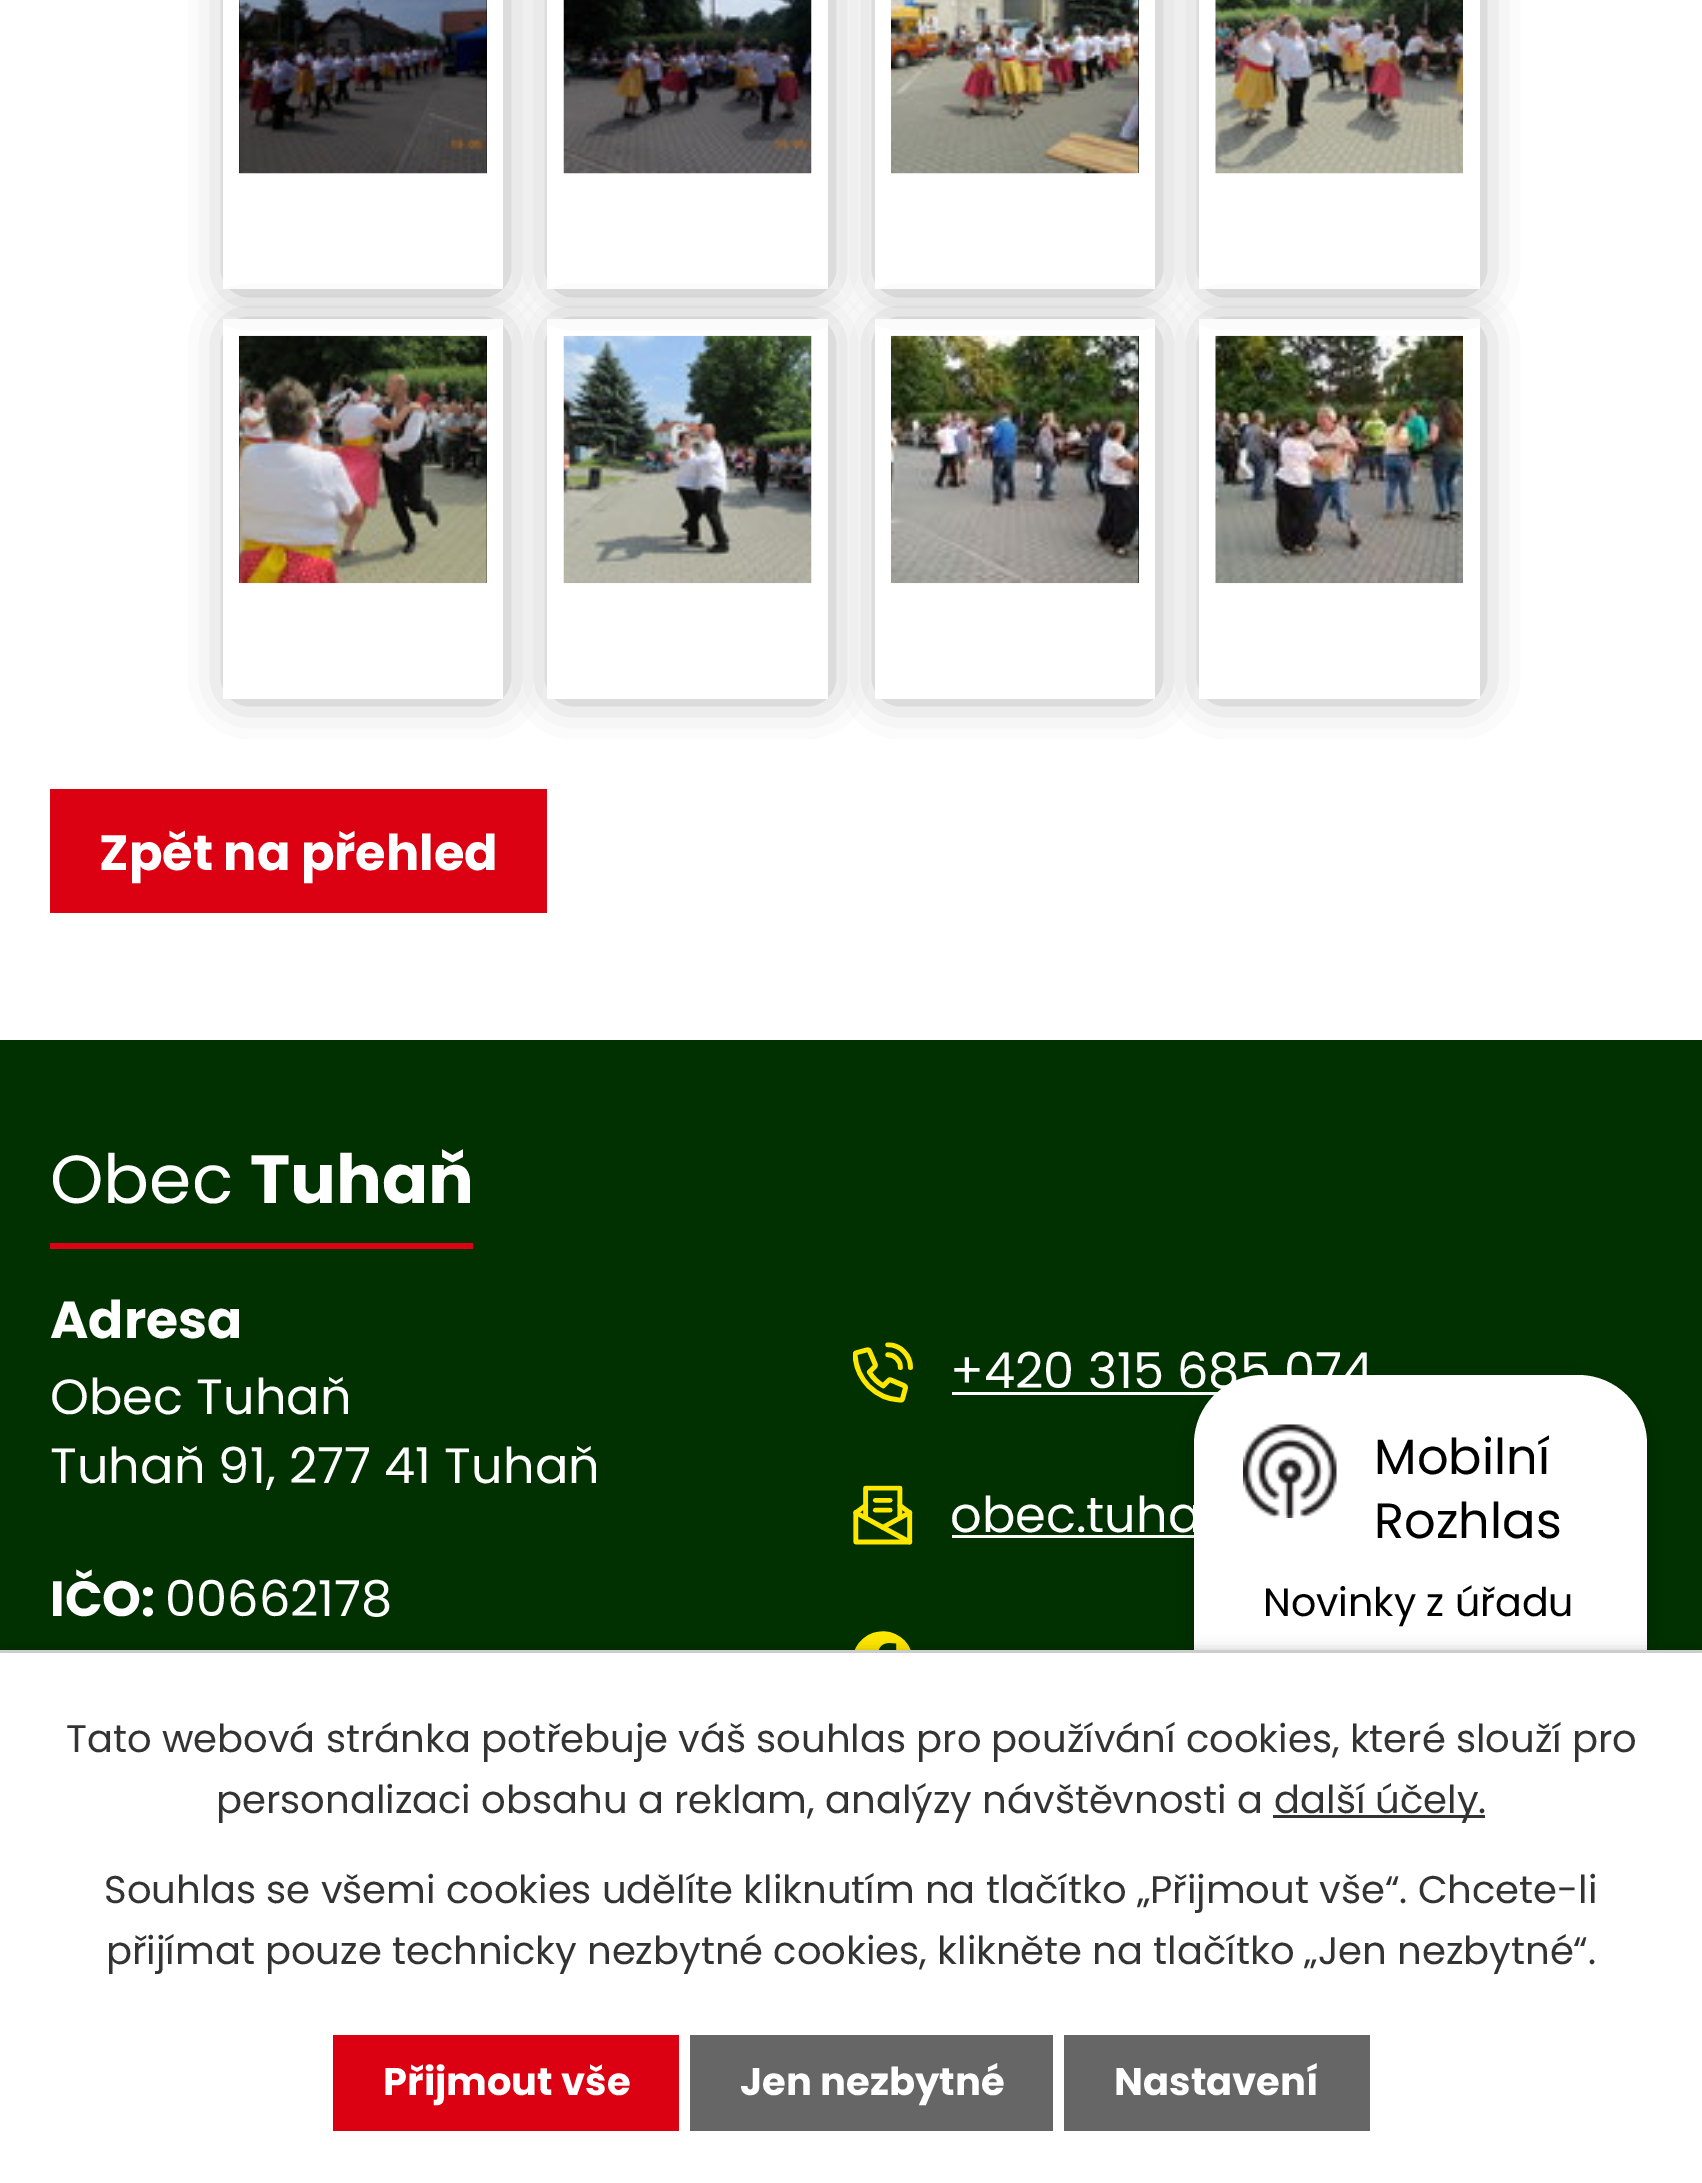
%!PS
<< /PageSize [1702 2183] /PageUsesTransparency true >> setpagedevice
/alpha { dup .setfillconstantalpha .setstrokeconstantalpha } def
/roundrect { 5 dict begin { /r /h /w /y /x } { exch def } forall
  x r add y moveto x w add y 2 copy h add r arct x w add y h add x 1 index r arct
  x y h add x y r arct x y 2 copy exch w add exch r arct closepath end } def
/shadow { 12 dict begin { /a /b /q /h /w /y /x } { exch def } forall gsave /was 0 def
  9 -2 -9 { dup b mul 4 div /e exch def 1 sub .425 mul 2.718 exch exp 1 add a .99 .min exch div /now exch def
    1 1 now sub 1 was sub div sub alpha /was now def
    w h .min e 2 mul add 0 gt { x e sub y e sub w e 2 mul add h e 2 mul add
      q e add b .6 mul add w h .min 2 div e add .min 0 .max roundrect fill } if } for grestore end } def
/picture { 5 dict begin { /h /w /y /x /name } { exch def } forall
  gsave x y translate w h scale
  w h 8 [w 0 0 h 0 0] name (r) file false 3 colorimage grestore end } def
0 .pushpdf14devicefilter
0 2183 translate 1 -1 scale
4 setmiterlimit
1 setgray
0 0 1702 2183 rectfill
gsave
newpath 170 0 moveto 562 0 lineto 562 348 lineto 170 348 lineto closepath 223 -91 moveto 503 -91 lineto 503 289 lineto 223 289 lineto closepath eoclip newpath
0.533 setgray
237 -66 258 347 0 22 1 shadow
grestore
(img1.rgb) 239 0 248 174 picture
gsave
newpath 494 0 moveto 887 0 lineto 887 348 lineto 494 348 lineto closepath 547 -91 moveto 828 -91 lineto 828 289 lineto 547 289 lineto closepath eoclip newpath
0.533 setgray
561 -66 259 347 0 22 1 shadow
grestore
(img2.rgb) 563 0 249 174 picture
gsave
newpath 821 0 moveto 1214 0 lineto 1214 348 lineto 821 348 lineto closepath 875 -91 moveto 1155 -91 lineto 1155 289 lineto 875 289 lineto closepath eoclip newpath
0.533 setgray
888 -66 259 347 0 22 1 shadow
grestore
0 setgray
1138 0 1 173 rectfill
(img3.rgb) 891 0 248 174 picture
gsave
newpath 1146 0 moveto 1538 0 lineto 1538 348 lineto 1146 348 lineto closepath 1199 -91 moveto 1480 -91 lineto 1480 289 lineto 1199 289 lineto closepath eoclip newpath
0.533 setgray
1213 -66 258 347 0 22 1 shadow
grestore
(img4.rgb) 1215 0 248 174 picture
gsave
newpath 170 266 moveto 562 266 lineto 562 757 lineto 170 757 lineto closepath 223 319 moveto 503 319 lineto 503 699 lineto 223 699 lineto closepath eoclip newpath
0.533 setgray
237 333 258 357 0 22 1 shadow
grestore
(img5.rgb) 239 335 248 249 picture
gsave
newpath 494 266 moveto 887 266 lineto 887 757 lineto 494 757 lineto closepath 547 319 moveto 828 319 lineto 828 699 lineto 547 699 lineto closepath eoclip newpath
0.533 setgray
561 333 259 357 0 22 1 shadow
grestore
(img6.rgb) 563 335 249 249 picture
gsave
newpath 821 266 moveto 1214 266 lineto 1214 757 lineto 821 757 lineto closepath 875 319 moveto 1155 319 lineto 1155 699 lineto 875 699 lineto closepath eoclip newpath
0.533 setgray
888 333 259 357 0 22 1 shadow
grestore
1138 336 1 247 rectfill
(img7.rgb) 891 335 248 249 picture
gsave
newpath 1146 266 moveto 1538 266 lineto 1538 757 lineto 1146 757 lineto closepath 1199 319 moveto 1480 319 lineto 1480 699 lineto 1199 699 lineto closepath eoclip newpath
0.533 setgray
1213 333 258 357 0 22 1 shadow
grestore
(img8.rgb) 1215 335 248 249 picture
0.859 0 0.071 setrgbcolor
50 789 497 124 rectfill
/Poppins-Bold [49.5 0 0 -49.5 0 0] selectfont
1 setgray
99 870 moveto (Zpět na přehled) show
0.004 0.192 0 setrgbcolor
0 1040 1702 610 rectfill
1 setgray
952 1392 266 3 rectfill
952 1535 242 3 rectfill
0 setgray
1194 1383 453 413 69 14 0.2 shadow
1 setgray
1194 1375 453 413 69 roundrect fill
(img9.rgb) 1243 1424 94 94 picture
/Poppins-Regular [49.5 0 0 -49.5 0 0] selectfont
0 setgray
1374 1474 moveto (Mobilní) show
1374 1538 moveto (Rozhlas) show
/Poppins-Regular [39.5 0 0 -39.5 0 0] selectfont
1263 1616 moveto (Novinky z úřadu) show
0.859 0 0.071 setrgbcolor
50 1243 423 6 rectfill
/Poppins-Regular [68 0 0 -68 0 0] selectfont
1 setgray
50 1203 moveto (Obec) show
/Poppins-Bold [68 0 0 -68 0 0] selectfont
250 1203 moveto (Tuhaň) show
/Poppins-Bold [52 0 0 -52 0 0] selectfont
50 1338 moveto (Adresa) show
/Poppins-Regular [49.5 0 0 -49.5 0 0] selectfont
50 1414 moveto (Obec Tuhaň) show
50 1483 moveto (Tuhaň 91, 277 41 Tuhaň) show
/Poppins-Bold [49.5 0 0 -49.5 0 0] selectfont
50 1616 moveto (IČO:) show
/Poppins-Regular [49.5 0 0 -49.5 0 0] selectfont
165 1616 moveto (00662178) show
(img10.rgb) 853 1342 60 61 picture
950 1388 moveto (+420 315 685 074) show
(img11.rgb) 853 1485 60 60 picture
950 1532 moveto (obec.tuha) show
(img12.rgb) 854 1631 57 19 picture
0 setgray
0 1650 1702 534 0 7 0.2 shadow
1 setgray
0 1653 1702 530 rectfill
0.8 setgray
0 1650 1702 3 rectfill
/Poppins-Regular [38.5 0 0 -38.5 0 0] selectfont
0.2 setgray
66 1752 moveto (Tato webová stránka potřebuje váš souhlas pro používání cookies, které slouží pro) show
216 1813 moveto (personalizaci obsahu a reklam, analýzy návštěvnosti a) show
1273 1815 212 3 rectfill
1274 1813 moveto (další účely.) show
104 1903 moveto (Souhlas se všemi cookies udělíte kliknutím na tlačítko „Přijmout vše“. Chcete-li) show
106 1964 moveto (přijímat pouze technicky nezbytné cookies, klikněte na tlačítko „Jen nezbytné“.) show
0.859 0 0.071 setrgbcolor
333 2035 346 96 rectfill
/Poppins-Bold [38.5 0 0 -38.5 0 0] selectfont
1 setgray
383 2095 moveto (Přijmout vše) show
0.4 setgray
690 2035 363 96 rectfill
1 setgray
740 2095 moveto (Jen nezbytné) show
0.4 setgray
1064 2035 306 96 rectfill
1 setgray
1114 2095 moveto (Nastavení) show
.poppdf14devicefilter showpage
